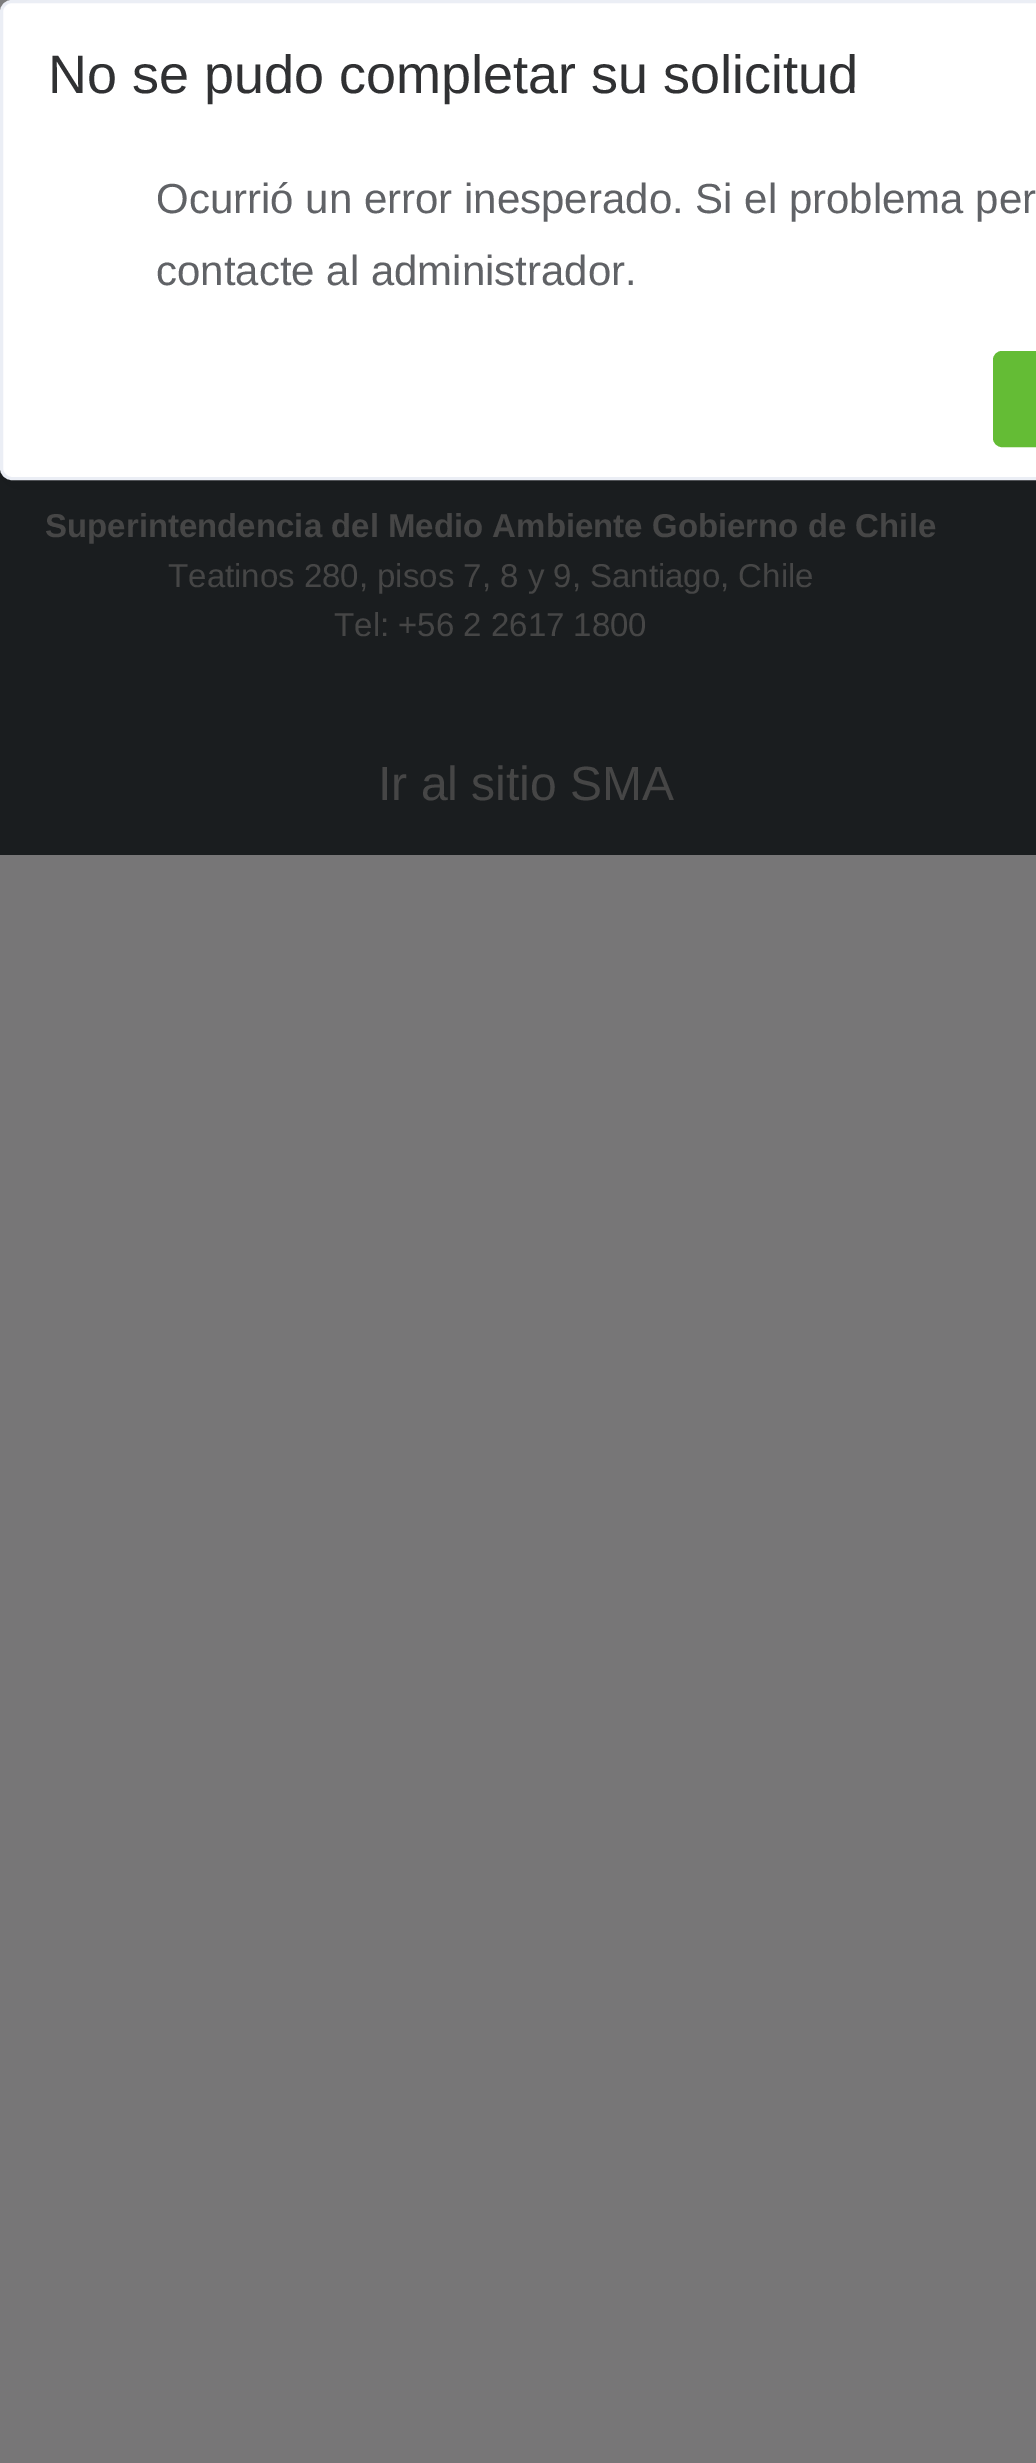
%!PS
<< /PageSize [1036 2463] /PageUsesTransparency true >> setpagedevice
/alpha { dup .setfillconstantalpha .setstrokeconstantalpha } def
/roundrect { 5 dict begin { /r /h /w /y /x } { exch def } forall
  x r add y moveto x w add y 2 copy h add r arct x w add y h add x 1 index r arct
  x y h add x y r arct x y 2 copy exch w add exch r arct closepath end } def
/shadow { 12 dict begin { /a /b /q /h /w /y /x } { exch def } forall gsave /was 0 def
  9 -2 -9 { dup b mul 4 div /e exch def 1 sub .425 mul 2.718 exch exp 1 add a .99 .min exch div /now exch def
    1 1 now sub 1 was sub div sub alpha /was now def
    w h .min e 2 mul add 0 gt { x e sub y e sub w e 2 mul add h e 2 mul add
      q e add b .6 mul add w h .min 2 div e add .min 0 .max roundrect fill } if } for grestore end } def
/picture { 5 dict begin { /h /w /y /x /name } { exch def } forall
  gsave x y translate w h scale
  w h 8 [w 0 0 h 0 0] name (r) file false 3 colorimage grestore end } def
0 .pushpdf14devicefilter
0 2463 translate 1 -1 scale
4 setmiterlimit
0.467 0.463 0.467 setrgbcolor
0 0 1036 2463 rectfill
(img1.rgb) 0 0 12 12 picture
0.102 0.114 0.122 setrgbcolor
0 468 1036 387 rectfill
0 setgray
0 6 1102 480 12 18 0.1 shadow
1 setgray
1.5 1.5 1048 477 10.5 roundrect gsave fill grestore
0.922 0.933 0.961 setrgbcolor
3 setlinewidth
stroke
/LiberationSans-Regular [54 0 0 -54 0 0] selectfont
0.188 0.192 0.2 setrgbcolor
48 93 moveto (No se pudo completar su solicitud) show
/LiberationSans-Regular [42 0 0 -42 0 0] selectfont
0.376 0.384 0.4 setrgbcolor
156 213 moveto (Ocurrió un error inesperado. Si el problema per) show
156 285 moveto (contacte al administrador.) show
0.392 0.737 0.208 setrgbcolor
994.5 352.5 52 93 7.5 roundrect gsave fill grestore
stroke
/LiberationSans-Bold [33 0 0 -33 0 0] selectfont
0.275 setgray
45 537 moveto (Superintendencia del Medio Ambiente Gobierno de Chile) show
/LiberationSans-Regular [33 0 0 -33 0 0] selectfont
168 587 moveto (Teatinos 280, pisos 7, 8 y 9, Santiago, Chile) show
334 636 moveto (Tel: +56 2 2617 1800) show
/LiberationSans-Regular [48 0 0 -48 0 0] selectfont
378 800 moveto (Ir al sitio SMA) show
.poppdf14devicefilter showpage
